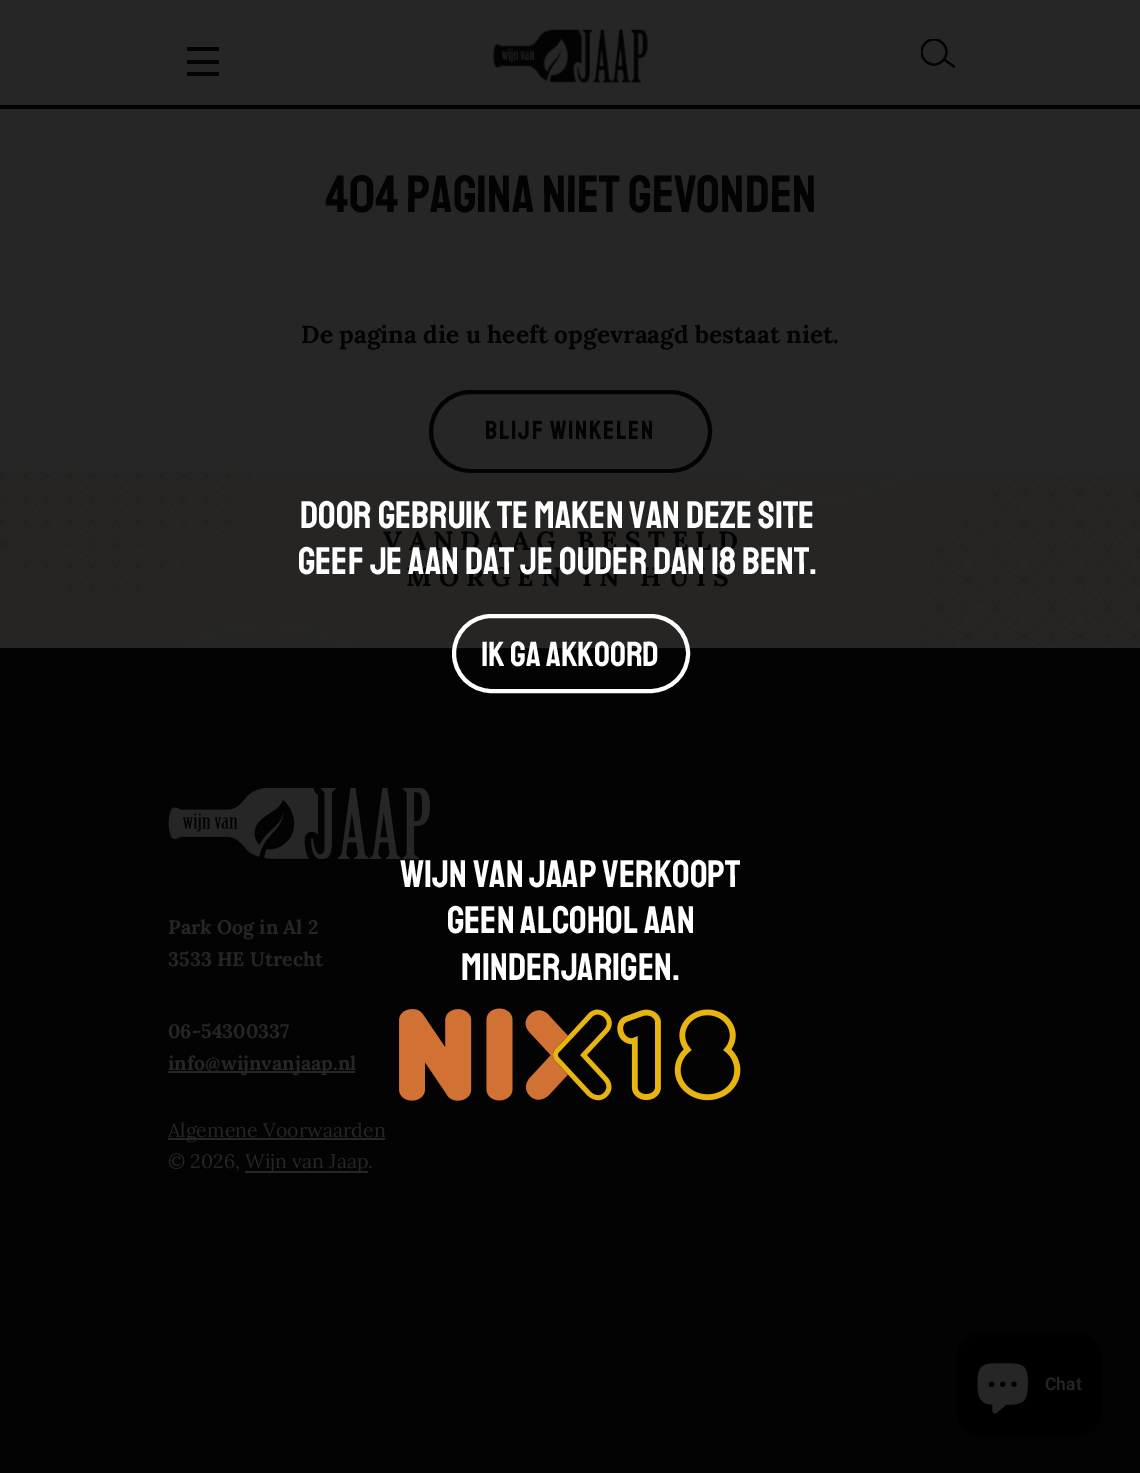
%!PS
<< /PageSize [1140 1473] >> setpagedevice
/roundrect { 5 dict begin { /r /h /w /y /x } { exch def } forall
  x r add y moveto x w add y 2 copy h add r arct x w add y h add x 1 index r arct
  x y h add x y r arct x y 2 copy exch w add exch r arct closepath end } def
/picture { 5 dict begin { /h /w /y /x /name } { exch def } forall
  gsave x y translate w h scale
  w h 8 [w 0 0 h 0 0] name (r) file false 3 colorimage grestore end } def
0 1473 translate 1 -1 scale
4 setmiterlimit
0.012 setgray
0 0 1140 1473 rectfill
0.149 setgray
0 0 1140 648 rectfill
0.012 setgray
0 105 1140 4 rectfill
187 47 32 4 rectfill
187 60 32 4 rectfill
187 72 32 4 rectfill
(img1.rgb) 492 29 156 54 picture
gsave
921 39 35 29 rectclip
2.1 setlinewidth
newpath 934 52 12.5 0 360 arc closepath stroke
grestore
2.1 setlinewidth
1 setlinecap
1 setlinejoin
newpath 944 59.5 moveto 954 66.5 lineto stroke
/Staatliches-Regular [52.5 0 0 -52.5 0 0] selectfont
325 212 moveto (404 PAGINA NIET GEVONDEN) show
/Lora-Bold [24.5 0 0 -24.5 0 0] selectfont
301 343 moveto (De pagina die u heeft opgevraagd bestaat niet.) show
4 setlinewidth
0 setlinecap
0 setlinejoin
431 392 279 79 39.5 roundrect stroke
/Staatliches-Regular [26.25 0 0 -26.25 0 0] selectfont
485 439 moveto 1.75 0 (BLIJF WINKELEN) ashow
(img2.rgb) 0 472 1140 176 picture
/Lora-Bold [26.25 0 0 -26.25 0 0] selectfont
383 550 moveto 7 0 (VANDAAG BESTELD,) ashow
406 586 moveto 7 0 (MORGEN IN HUIS) ashow
(img3.rgb) 168 788 262 71 picture
/Lora-Bold [19.6 0 0 -19.6 0 0] selectfont
0.149 setgray
168 934 moveto (Park Oog in Al 2) show
168 966 moveto (3533 HE Utrecht) show
168 1038 moveto (06-54300337) show
168 1071 187 2 rectfill
168 1070 moveto (info@wijnvanjaap.nl) show
168 1138 217 2 rectfill
/Lora-Regular [19.6 0 0 -19.6 0 0] selectfont
168 1137 moveto (Algemene Voorwaarden) show
168 1168 moveto (© 2026,) show
245 1171 123 2 rectfill
245 1168 moveto (Wijn van Jaap.) show
/Staatliches-Regular [38.5 0 0 -38.5 0 0] selectfont
1 setgray
300 528 moveto (DOOR GEBRUIK TE MAKEN VAN DEZE SITE) show
298 574 moveto (GEEF JE AAN DAT JE OUDER DAN 18 BENT.) show
454 616 234 75 37.5 roundrect stroke
/Staatliches-Regular [35 0 0 -35 0 0] selectfont
481 666 moveto (IK GA AKKOORD) show
/Staatliches-Regular [38.5 0 0 -38.5 0 0] selectfont
400 887 moveto (Wijn van Jaap verkoopt) show
447 933 moveto (geen alcohol aan) show
461 980 moveto (minderjarigen.) show
(img4.rgb) 399 1008 342 93 picture
0 setgray
956 1332 147 105 28 roundrect fill
(img5.rgb) 977 1363 51 51 picture
/Roboto-SemiBold [17.5 0 0 -17.5 0 0] selectfont
0.149 setgray
1045 1390 moveto (Chat) show
showpage
